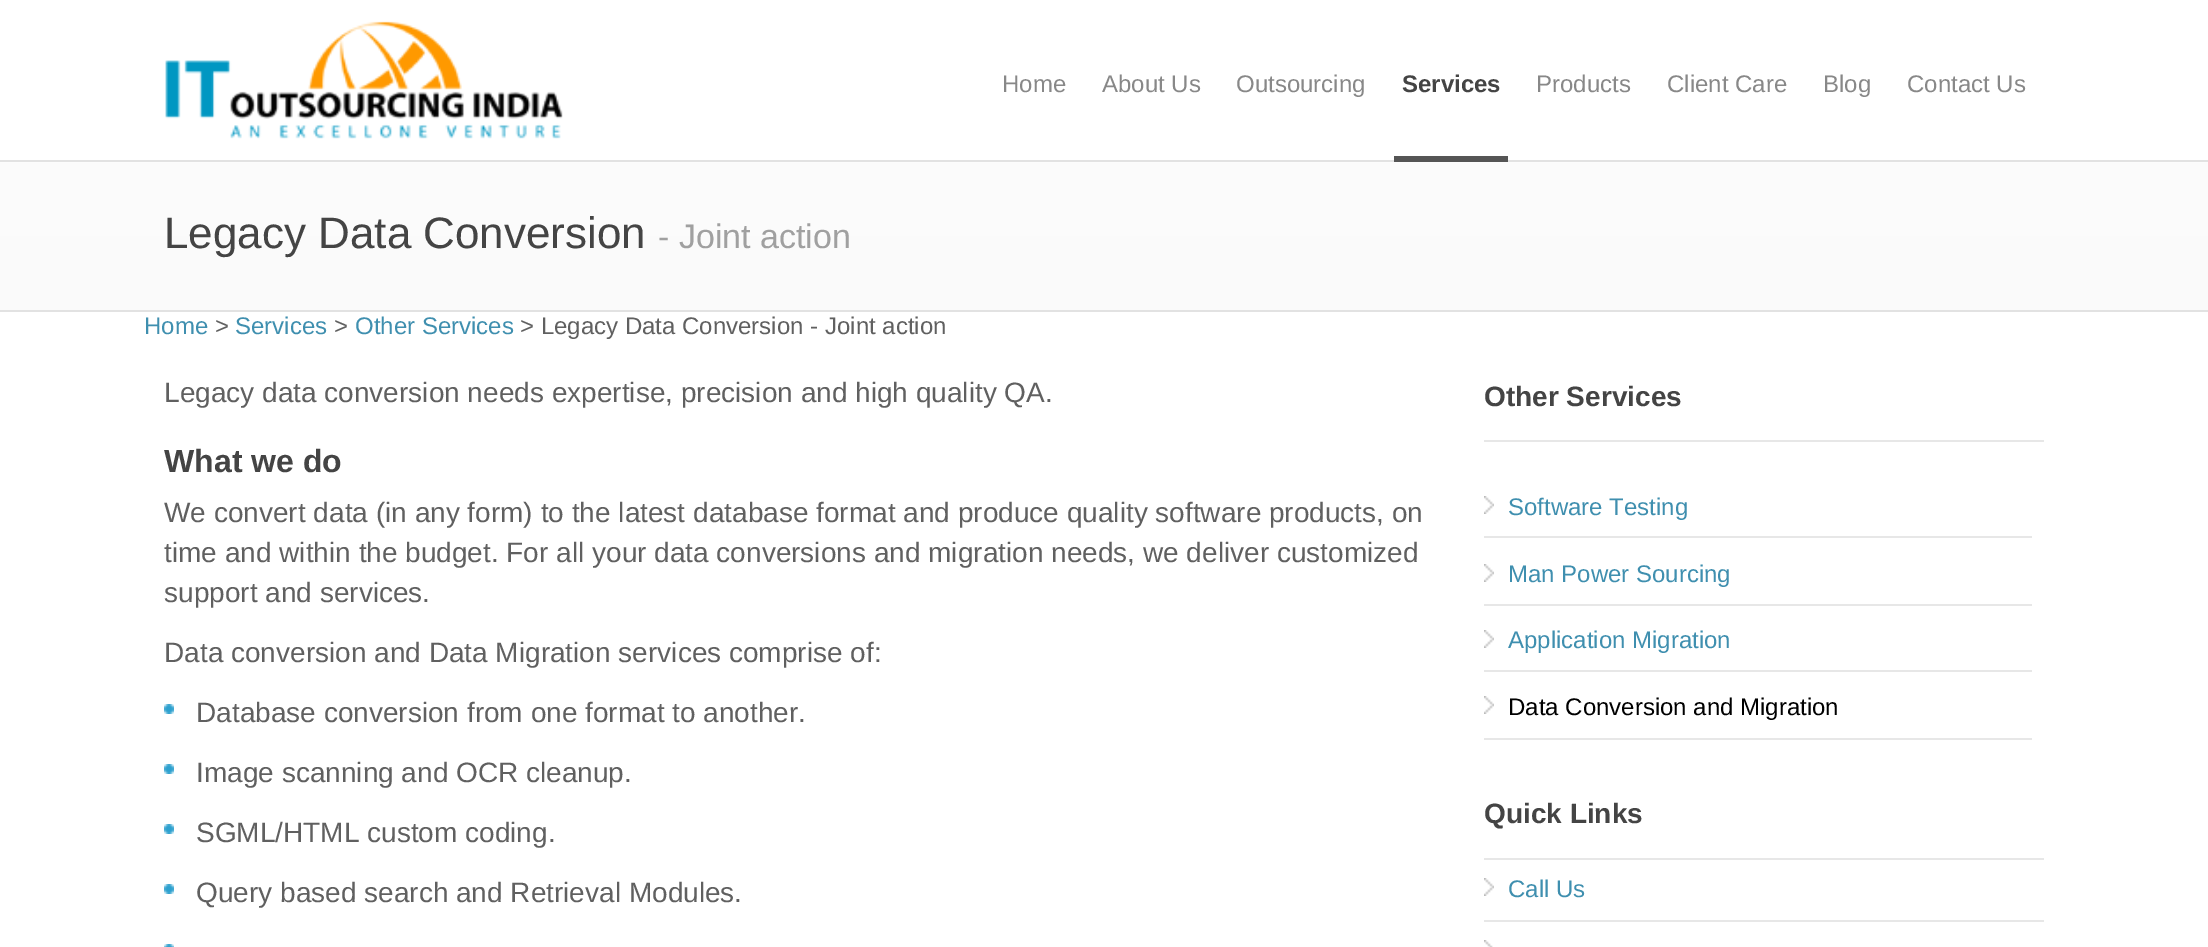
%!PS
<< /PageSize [2208 947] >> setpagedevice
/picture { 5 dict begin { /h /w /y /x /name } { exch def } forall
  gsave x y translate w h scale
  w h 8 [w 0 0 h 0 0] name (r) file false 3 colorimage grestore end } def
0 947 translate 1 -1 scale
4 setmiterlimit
1 setgray
0 0 2208 947 rectfill
(img1.rgb) 165 21 398 118 picture
/LiberationSans-Regular [24 0 0 -24 0 0] selectfont
0.533 setgray
1002 92 moveto (Home) show
1102 92 moveto (About Us) show
1236 92 moveto (Outsourcing) show
0.886 setgray
0 160 2208 2 rectfill
0.333 setgray
1394 156 114 6 rectfill
/LiberationSans-Bold [24 0 0 -24 0 0] selectfont
0.267 setgray
1402 92 moveto (Services) show
/LiberationSans-Regular [24 0 0 -24 0 0] selectfont
0.533 setgray
1536 92 moveto (Products) show
1667 92 moveto (Client Care) show
1823 92 moveto (Blog) show
1907 92 moveto (Contact Us) show
gsave newpath 0 162 moveto 2208 162 lineto 2208 310 lineto 0 310 lineto closepath clip newpath
<< /ShadingType 2 /ColorSpace /DeviceRGB /Coords [1104 310 1104 162] /Extend [true true] /Function << /FunctionType 2 /Domain [0 1] /C0 [0.98 0.98 0.98] /C1 [0.988 0.988 0.988] /N 1 >> >> shfill grestore
0.886 setgray
0 310 2208 2 rectfill
/LiberationSans-Regular [44 0 0 -44 0 0] selectfont
0.267 setgray
164 248 moveto (Legacy Data Conversion) show
/LiberationSans-Regular [34 0 0 -34 0 0] selectfont
0.627 setgray
658 248 moveto (- Joint action) show
/LiberationSans-Regular [24 0 0 -24 0 0] selectfont
0.247 0.561 0.686 setrgbcolor
144 334 moveto (Home) show
0.376 setgray
215 334 moveto (>) show
0.247 0.561 0.686 setrgbcolor
235 334 moveto (Services) show
0.376 setgray
334 334 moveto (>) show
0.247 0.561 0.686 setrgbcolor
355 334 moveto (Other Services) show
0.376 setgray
520 334 moveto (> Legacy Data Conversion - Joint action) show
/LiberationSans-Regular [28 0 0 -28 0 0] selectfont
164 402 moveto (Legacy data conversion needs expertise, precision and high quality QA.) show
/LiberationSans-Bold [32 0 0 -32 0 0] selectfont
0.267 setgray
164 472 moveto (What we do) show
/LiberationSans-Regular [28 0 0 -28 0 0] selectfont
0.376 setgray
164 522 moveto (We convert data \(in any form\) to the latest database format and produce quality software products, on) show
164 562 moveto (time and within the budget. For all your data conversions and migration needs, we deliver customized) show
164 602 moveto (support and services.) show
164 662 moveto (Data conversion and Data Migration services comprise of:) show
(img2.rgb) 164 704 10 10 picture
196 722 moveto (Database conversion from one format to another.) show
(img2.rgb) 164 764 10 10 picture
196 782 moveto (Image scanning and OCR cleanup.) show
(img2.rgb) 164 824 10 10 picture
196 842 moveto (SGML/HTML custom coding.) show
(img2.rgb) 164 884 10 10 picture
196 902 moveto (Query based search and Retrieval Modules.) show
(img3.rgb) 164 944 10 3 picture
0.906 setgray
1484 440 560 2 rectfill
/LiberationSans-Bold [28 0 0 -28 0 0] selectfont
0.267 setgray
1484 406 moveto (Other Services) show
(img4.rgb) 1484 496 10 18 picture
0.906 setgray
1484 536 548 2 rectfill
/LiberationSans-Regular [24 0 0 -24 0 0] selectfont
0.247 0.561 0.686 setrgbcolor
1508 515 moveto (Software Testing) show
(img4.rgb) 1484 564 10 18 picture
0.906 setgray
1484 604 548 2 rectfill
0.247 0.561 0.686 setrgbcolor
1508 582 moveto (Man Power Sourcing) show
(img4.rgb) 1484 630 10 18 picture
0.906 setgray
1484 670 548 2 rectfill
0.247 0.561 0.686 setrgbcolor
1508 648 moveto (Application Migration) show
(img4.rgb) 1484 696 10 18 picture
0.906 setgray
1484 738 548 2 rectfill
0 setgray
1508 715 moveto (Data Conversion and Migration) show
0.906 setgray
1484 858 560 2 rectfill
/LiberationSans-Bold [28 0 0 -28 0 0] selectfont
0.267 setgray
1484 823 moveto (Quick Links) show
(img4.rgb) 1484 878 10 18 picture
0.906 setgray
1484 920 560 2 rectfill
/LiberationSans-Regular [24 0 0 -24 0 0] selectfont
0.247 0.561 0.686 setrgbcolor
1508 897 moveto (Call Us) show
(img5.rgb) 1484 940 9 7 picture
showpage
